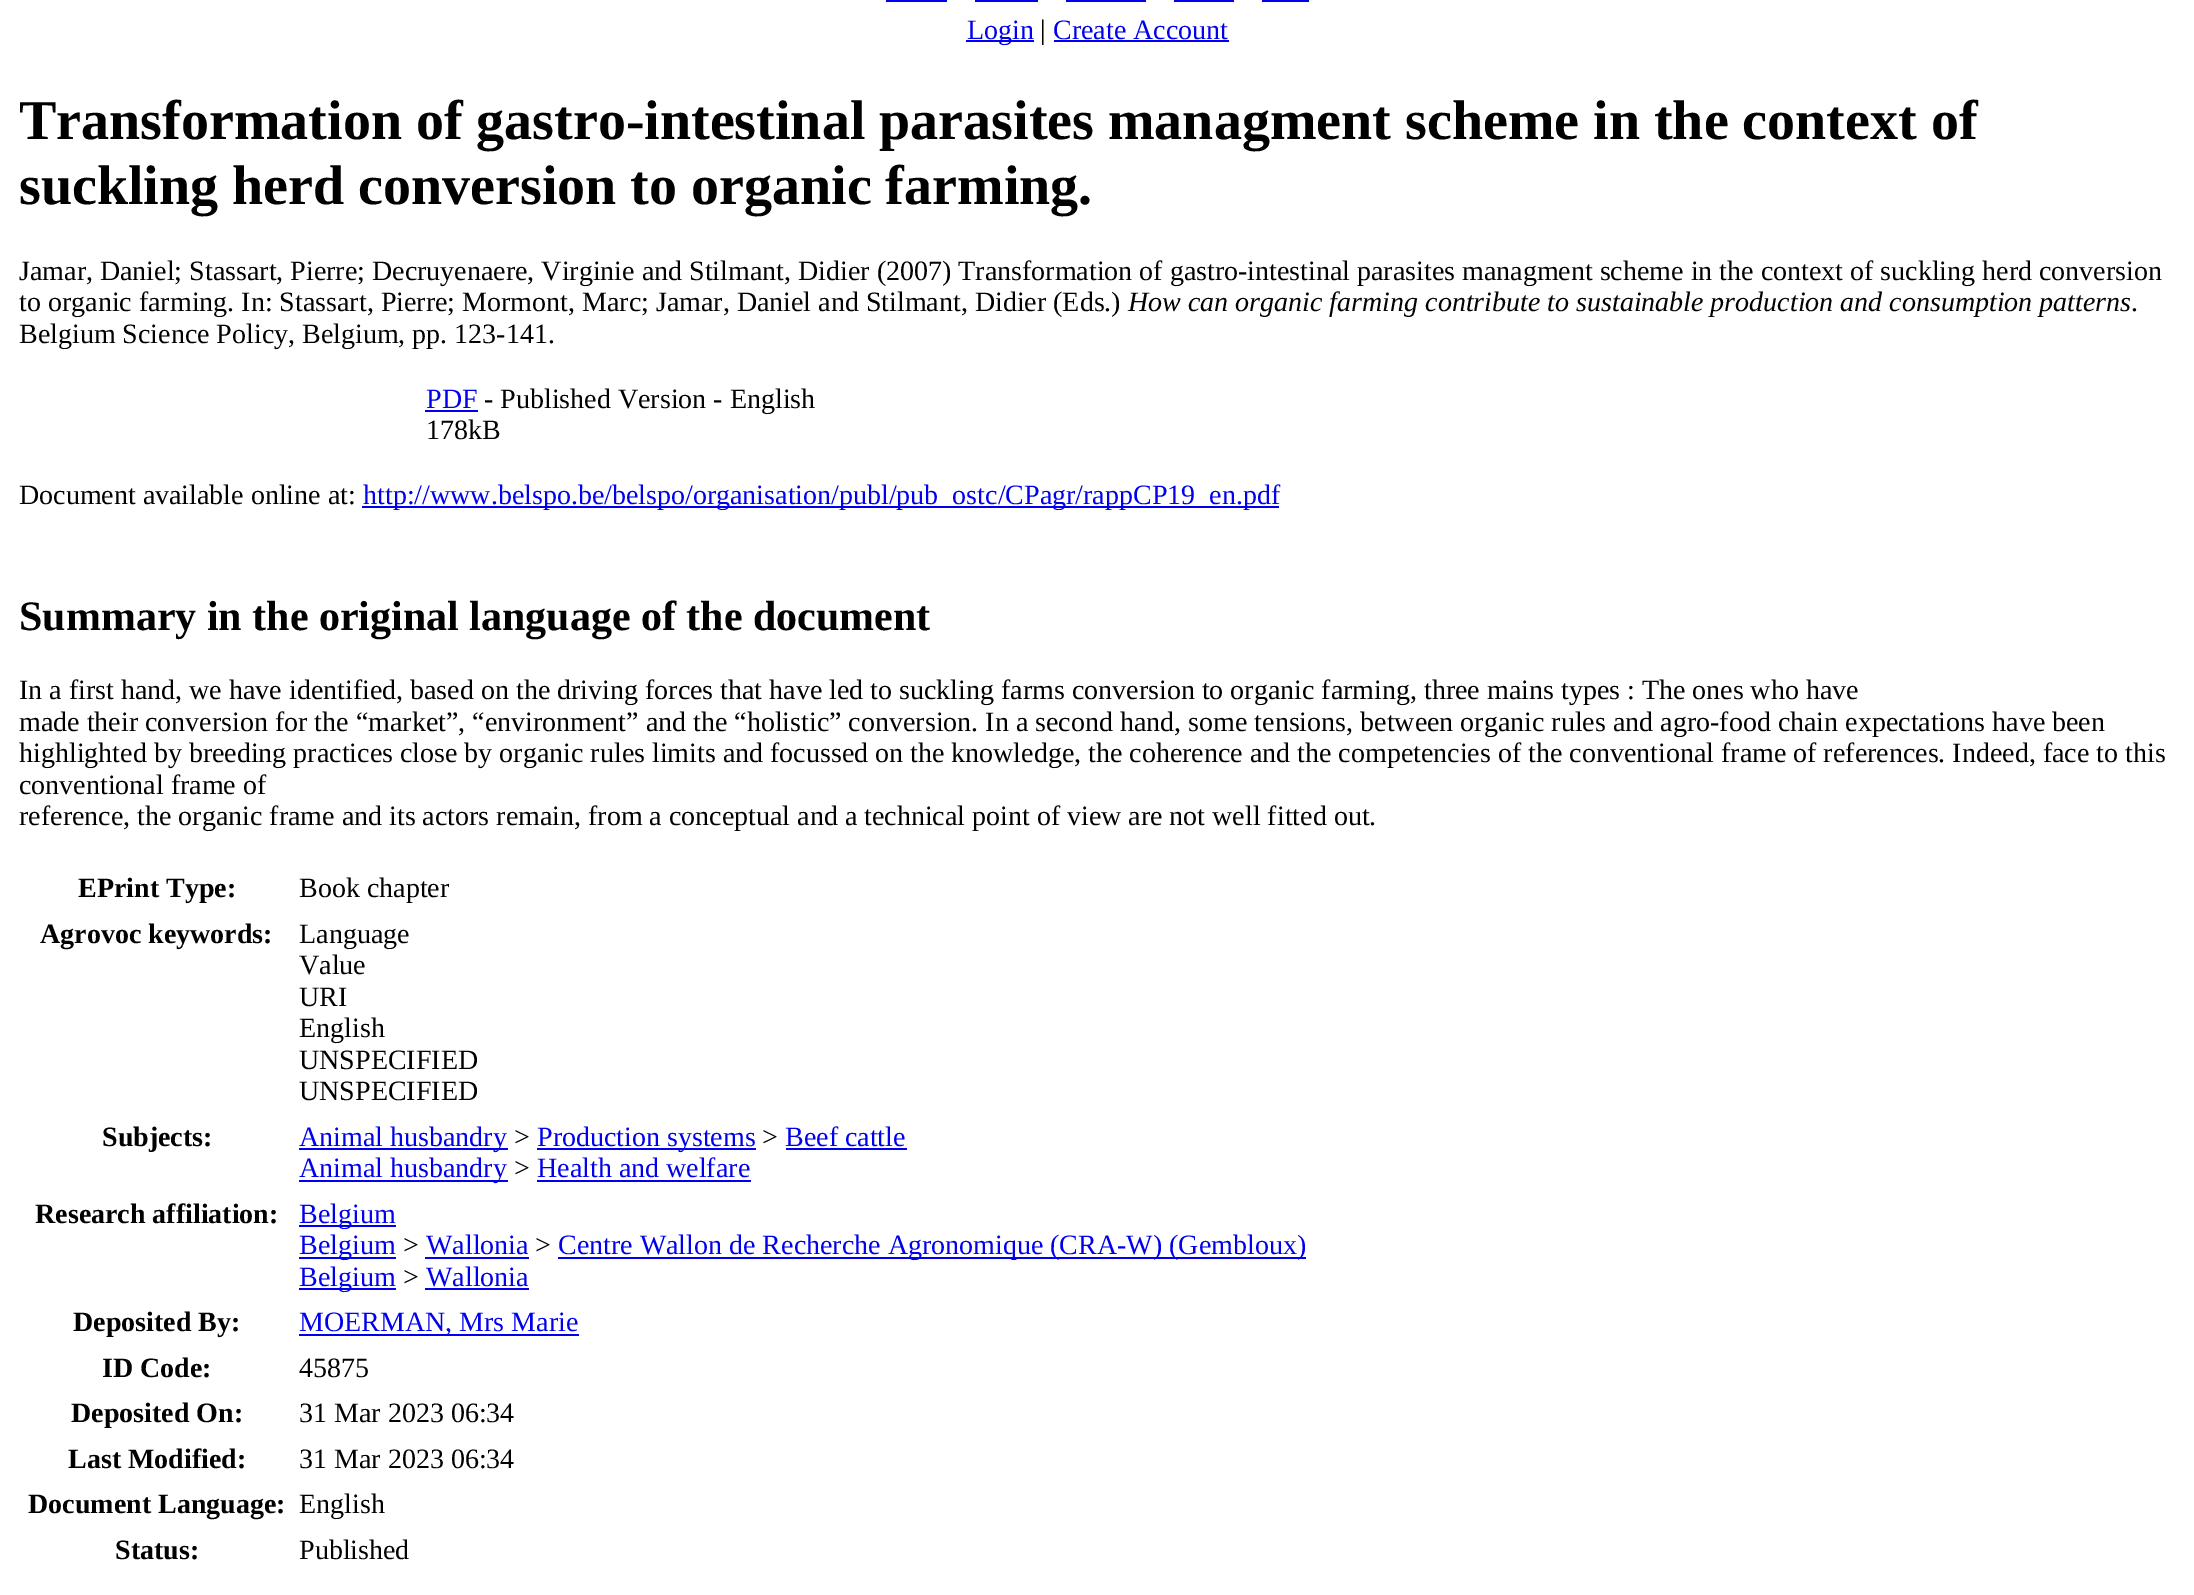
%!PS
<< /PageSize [2194 1595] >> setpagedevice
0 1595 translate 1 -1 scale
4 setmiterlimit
1 setgray
0 0 2194 1595 rectfill
0 0 0.933 setrgbcolor
886 0 61 2 rectfill
975 0 63 2 rectfill
1066 0 80 2 rectfill
1174 0 60 2 rectfill
1262 0 47 2 rectfill
966 40 68 2 rectfill
/LiberationSerif-Regular [28 0 0 -28 0 0] selectfont
967 39 moveto (Login) show
0 setgray
1040 39 moveto (|) show
0 0 0.933 setrgbcolor
1053 39 moveto (Create Account) show
1054 40 175 2 rectfill
/LiberationSerif-Bold [56 0 0 -56 0 0] selectfont
0 setgray
19 139 moveto (Transformation of gastro-intestinal parasites managment scheme in the context of) show
19 204 moveto (suckling herd conversion to organic farming.) show
/LiberationSerif-Regular [28 0 0 -28 0 0] selectfont
19 280 moveto (Jamar, Daniel; Stassart, Pierre; Decruyenaere, Virginie and Stilmant, Didier \(2007\) Transformation of gastro-intestinal parasites managment scheme in the context of suckling herd conversion) show
19 311 moveto (to organic farming. In: Stassart, Pierre; Mormont, Marc; Jamar, Daniel and Stilmant, Didier \(Eds.\)) show
/LiberationSerif-Italic [28 0 0 -28 0 0] selectfont
1128 311 moveto (How can organic farming contribute to sustainable production and consumption patterns) show
/LiberationSerif-Regular [28 0 0 -28 0 0] selectfont
2131 311 moveto (.) show
19 343 moveto (Belgium Science Policy, Belgium, pp. 123-141.) show
0 0 0.933 setrgbcolor
426 408 moveto (PDF) show
425 410 53 2 rectfill
0 setgray
484 408 moveto (- Published Version - English) show
426 439 moveto (178kB) show
19 504 moveto (Document available online at:) show
0 0 0.933 setrgbcolor
362 506 917 2 rectfill
363 504 moveto (http://www.belspo.be/belspo/organisation/publ/pub_ostc/CPagr/rappCP19_en.pdf) show
/LiberationSerif-Bold [42 0 0 -42 0 0] selectfont
0 setgray
19 630 moveto (Summary in the original language of the document) show
/LiberationSerif-Regular [28 0 0 -28 0 0] selectfont
19 699 moveto (In a first hand, we have identified, based on the driving forces that have led to suckling farms conversion to organic farming, three mains types : The ones who have) show
19 731 moveto (made their conversion for the “market”, “environment” and the “holistic” conversion. In a second hand, some tensions, between organic rules and agro-food chain expectations have been) show
19 762 moveto (highlighted by breeding practices close by organic rules limits and focussed on the knowledge, the coherence and the competencies of the conventional frame of references. Indeed, face to this) show
19 794 moveto (conventional frame of) show
19 825 moveto (reference, the organic frame and its actors remain, from a conceptual and a technical point of view are not well fitted out.) show
/LiberationSerif-Bold [28 0 0 -28 0 0] selectfont
78 897 moveto (EPrint Type:) show
/LiberationSerif-Regular [28 0 0 -28 0 0] selectfont
299 897 moveto (Book chapter) show
/LiberationSerif-Bold [28 0 0 -28 0 0] selectfont
40 943 moveto (Agrovoc keywords:) show
/LiberationSerif-Regular [28 0 0 -28 0 0] selectfont
299 943 moveto (Language) show
299 974 moveto (Value) show
299 1006 moveto (URI) show
299 1037 moveto (English) show
299 1069 moveto (UNSPECIFIED) show
299 1100 moveto (UNSPECIFIED) show
/LiberationSerif-Bold [28 0 0 -28 0 0] selectfont
102 1146 moveto (Subjects:) show
0 0 0.933 setrgbcolor
299 1148 209 2 rectfill
/LiberationSerif-Regular [28 0 0 -28 0 0] selectfont
299 1146 moveto (Animal husbandry) show
0 setgray
514 1146 moveto (>) show
0 0 0.933 setrgbcolor
537 1148 219 2 rectfill
537 1146 moveto (Production systems) show
0 setgray
762 1146 moveto (>) show
0 0 0.933 setrgbcolor
785 1146 moveto (Beef cattle) show
786 1148 121 2 rectfill
299 1180 209 2 rectfill
299 1177 moveto (Animal husbandry) show
0 setgray
514 1177 moveto (>) show
0 0 0.933 setrgbcolor
537 1177 moveto (Health and welfare) show
537 1180 214 2 rectfill
/LiberationSerif-Bold [28 0 0 -28 0 0] selectfont
0 setgray
35 1223 moveto (Research affiliation:) show
0 0 0.933 setrgbcolor
299 1225 97 2 rectfill
/LiberationSerif-Regular [28 0 0 -28 0 0] selectfont
299 1223 moveto (Belgium) show
299 1257 97 2 rectfill
299 1254 moveto (Belgium) show
0 setgray
403 1254 moveto (>) show
0 0 0.933 setrgbcolor
426 1254 moveto (Wallonia) show
425 1257 104 2 rectfill
0 setgray
535 1254 moveto (>) show
0 0 0.933 setrgbcolor
558 1257 748 2 rectfill
558 1254 moveto (Centre Wallon de Recherche Agronomique \(CRA-W\) \(Gembloux\)) show
299 1288 97 2 rectfill
299 1286 moveto (Belgium) show
0 setgray
403 1286 moveto (>) show
0 0 0.933 setrgbcolor
426 1286 moveto (Wallonia) show
425 1288 104 2 rectfill
/LiberationSerif-Bold [28 0 0 -28 0 0] selectfont
0 setgray
73 1331 moveto (Deposited By:) show
0 0 0.933 setrgbcolor
299 1334 280 2 rectfill
/LiberationSerif-Regular [28 0 0 -28 0 0] selectfont
299 1331 moveto (MOERMAN, Mrs Marie) show
/LiberationSerif-Bold [28 0 0 -28 0 0] selectfont
0 setgray
102 1377 moveto (ID Code:) show
/LiberationSerif-Regular [28 0 0 -28 0 0] selectfont
299 1377 moveto (45875) show
/LiberationSerif-Bold [28 0 0 -28 0 0] selectfont
71 1422 moveto (Deposited On:) show
/LiberationSerif-Regular [28 0 0 -28 0 0] selectfont
299 1422 moveto (31 Mar 2023 06:34) show
/LiberationSerif-Bold [28 0 0 -28 0 0] selectfont
68 1468 moveto (Last Modified:) show
/LiberationSerif-Regular [28 0 0 -28 0 0] selectfont
299 1468 moveto (31 Mar 2023 06:34) show
/LiberationSerif-Bold [28 0 0 -28 0 0] selectfont
28 1513 moveto (Document Language:) show
/LiberationSerif-Regular [28 0 0 -28 0 0] selectfont
299 1513 moveto (English) show
/LiberationSerif-Bold [28 0 0 -28 0 0] selectfont
115 1559 moveto (Status:) show
/LiberationSerif-Regular [28 0 0 -28 0 0] selectfont
299 1559 moveto (Published) show
showpage
